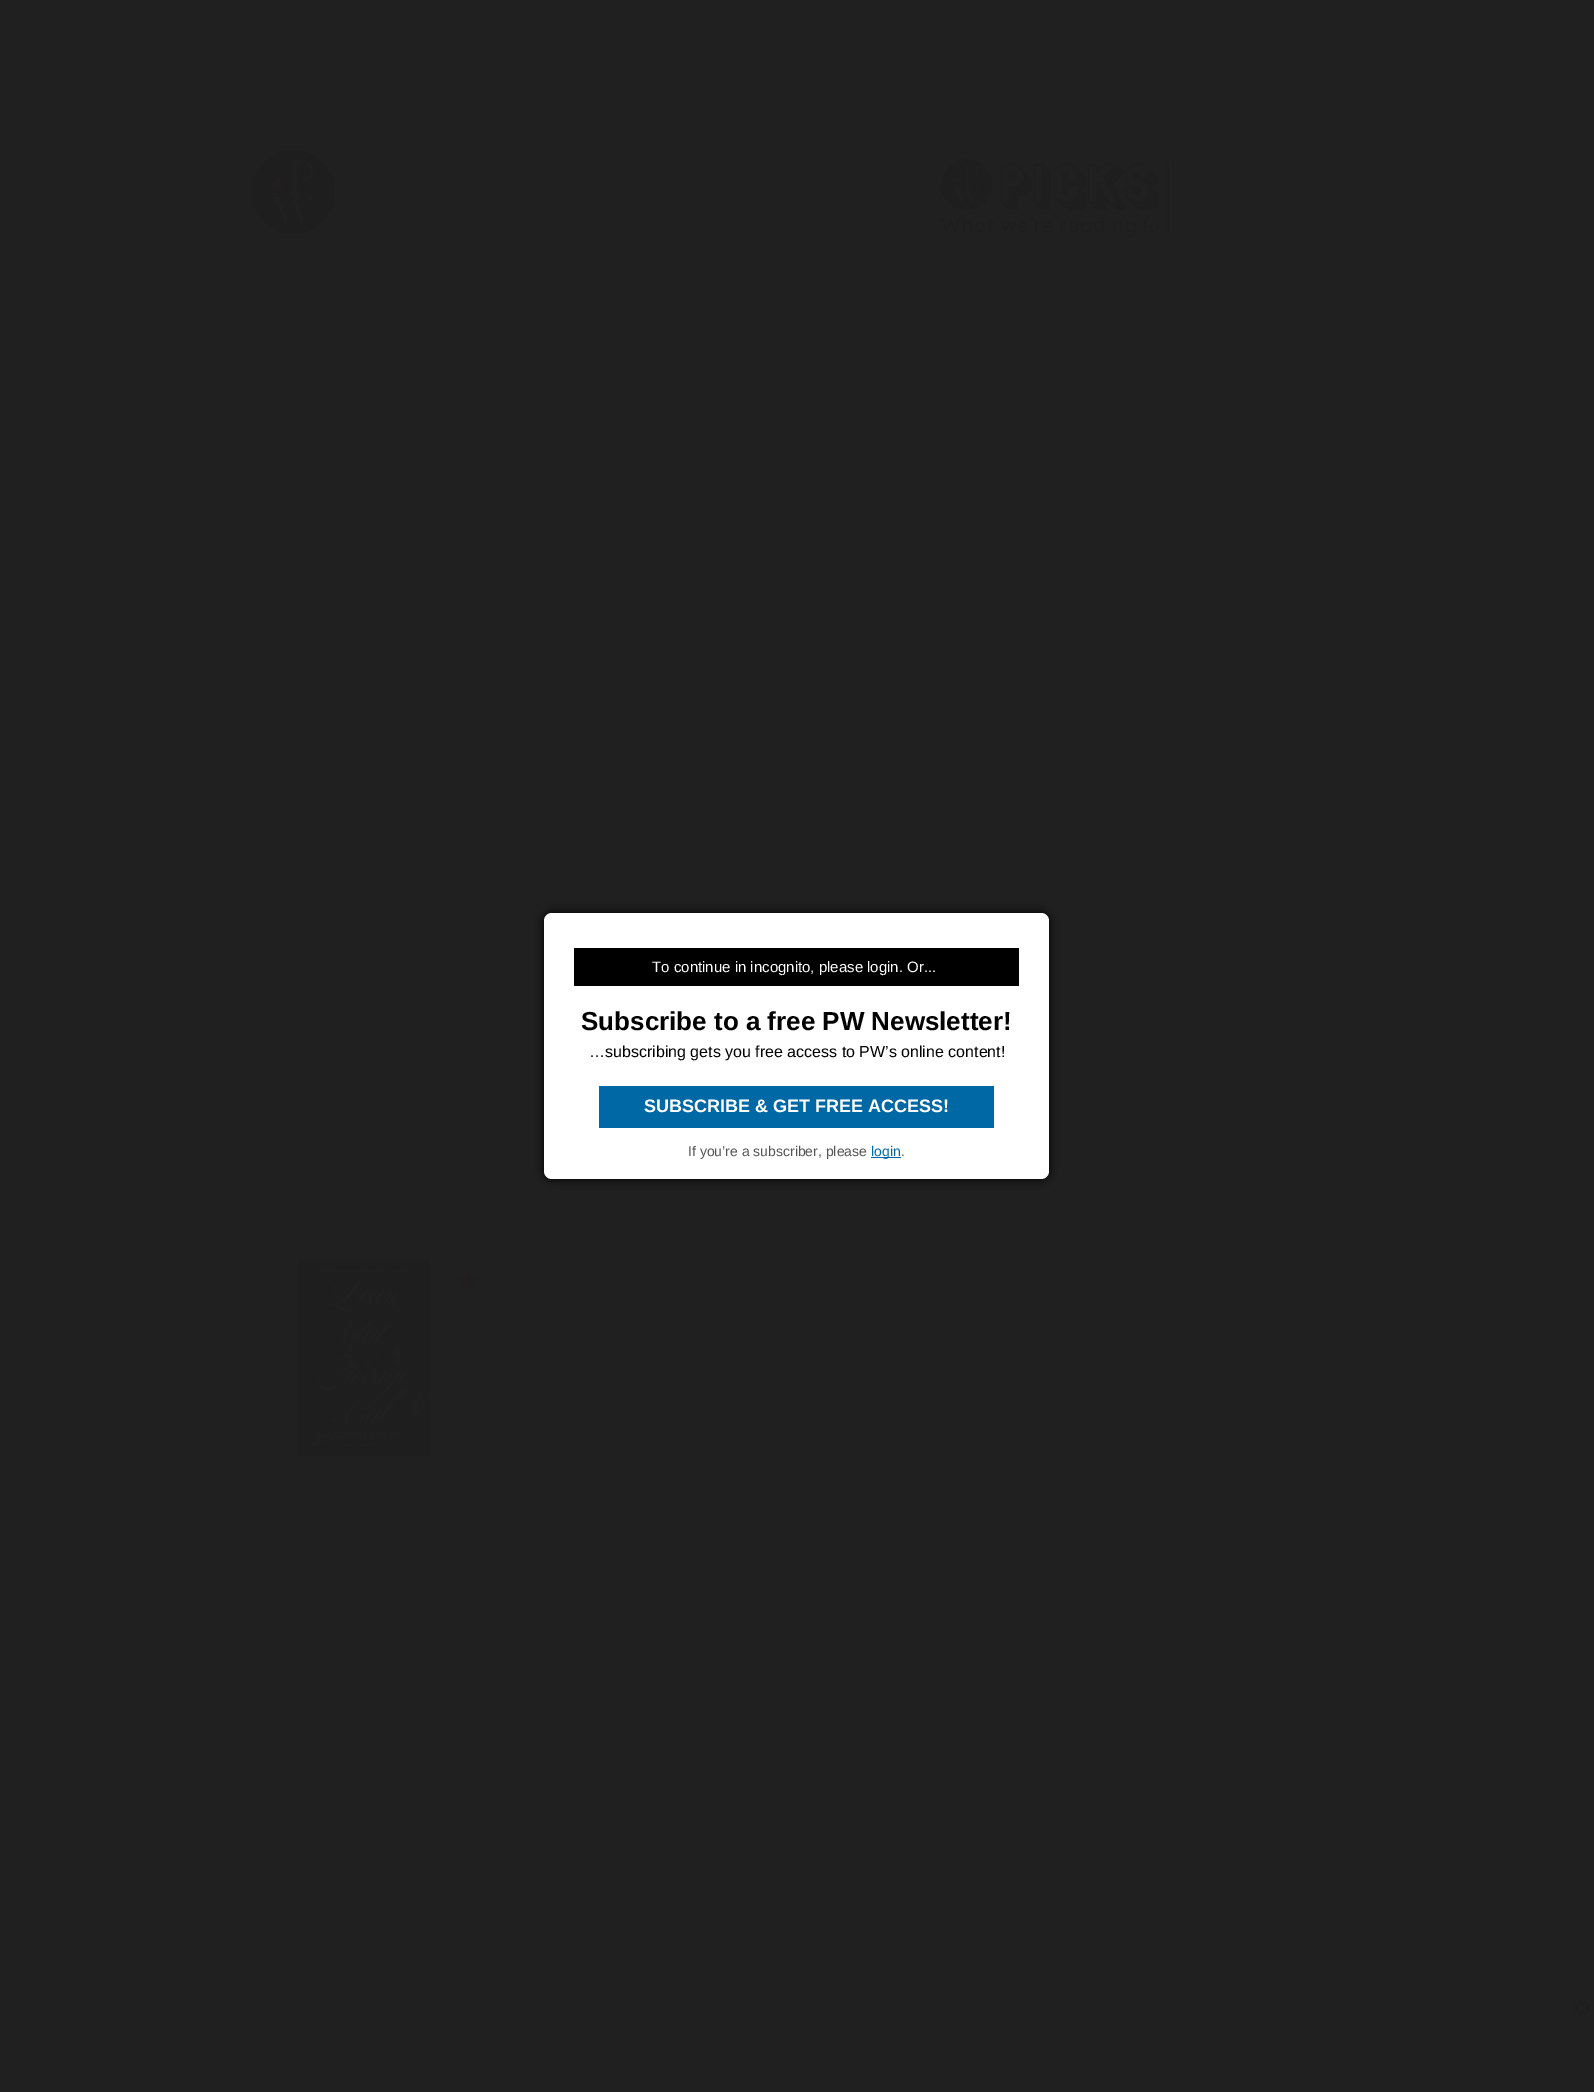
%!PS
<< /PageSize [1594 2092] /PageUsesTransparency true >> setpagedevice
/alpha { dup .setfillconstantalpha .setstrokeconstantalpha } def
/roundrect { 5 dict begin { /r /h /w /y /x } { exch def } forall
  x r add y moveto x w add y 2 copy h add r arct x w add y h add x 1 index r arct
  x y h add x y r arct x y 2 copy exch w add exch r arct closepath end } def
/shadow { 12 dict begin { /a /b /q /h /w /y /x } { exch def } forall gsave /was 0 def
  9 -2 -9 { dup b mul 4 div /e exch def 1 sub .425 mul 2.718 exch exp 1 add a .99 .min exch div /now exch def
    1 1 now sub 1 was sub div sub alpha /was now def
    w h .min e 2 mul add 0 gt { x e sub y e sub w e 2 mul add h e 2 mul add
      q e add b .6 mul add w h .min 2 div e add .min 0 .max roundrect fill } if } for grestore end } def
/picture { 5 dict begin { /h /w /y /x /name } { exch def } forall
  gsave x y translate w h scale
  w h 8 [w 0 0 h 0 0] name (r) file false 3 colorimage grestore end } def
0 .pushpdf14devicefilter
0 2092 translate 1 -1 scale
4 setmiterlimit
0.125 setgray
0 0 1594 2092 rectfill
(img1.rgb) 251 150 84 84 picture
(img2.rgb) 940 158 230 80 picture
(img3.rgb) 302 347 382 576 picture
(img4.rgb) 299 1260 130 196 picture
(img5.rgb) 455 1269 24 23 picture
(img6.rgb) 1575 2001 14 14 picture
0 setgray
544 913 505 266 8 5 1 shadow
1 setgray
544 913 505 266 8 roundrect fill
0 setgray
574 948 445 38 rectfill
/LiberationSans-Regular [15 0 0 -15 0 0] selectfont
1 setgray
652 972 moveto (To continue in incognito, please login. Or...) show
/LiberationSans-Bold [26 0 0 -26 0 0] selectfont
0 setgray
581 1030 moveto (Subscribe to a free PW Newsletter!) show
/LiberationSans-Regular [16 0 0 -16 0 0] selectfont
589 1057 moveto (…subscribing gets you free access to PW’s online content!) show
0 0.408 0.647 setrgbcolor
599 1086 395 42 rectfill
/LiberationSans-Bold [18 0 0 -18 0 0] selectfont
1 setgray
644 1112 moveto (SUBSCRIBE & GET FREE ACCESS!) show
/LiberationSans-Regular [14 0 0 -14 0 0] selectfont
0.333 setgray
688 1156 moveto (If you’re a subscriber, please) show
0 0.408 0.647 setrgbcolor
871 1157 30 1 rectfill
871 1156 moveto (login) show
0.333 setgray
901 1156 moveto (.) show
.poppdf14devicefilter showpage
